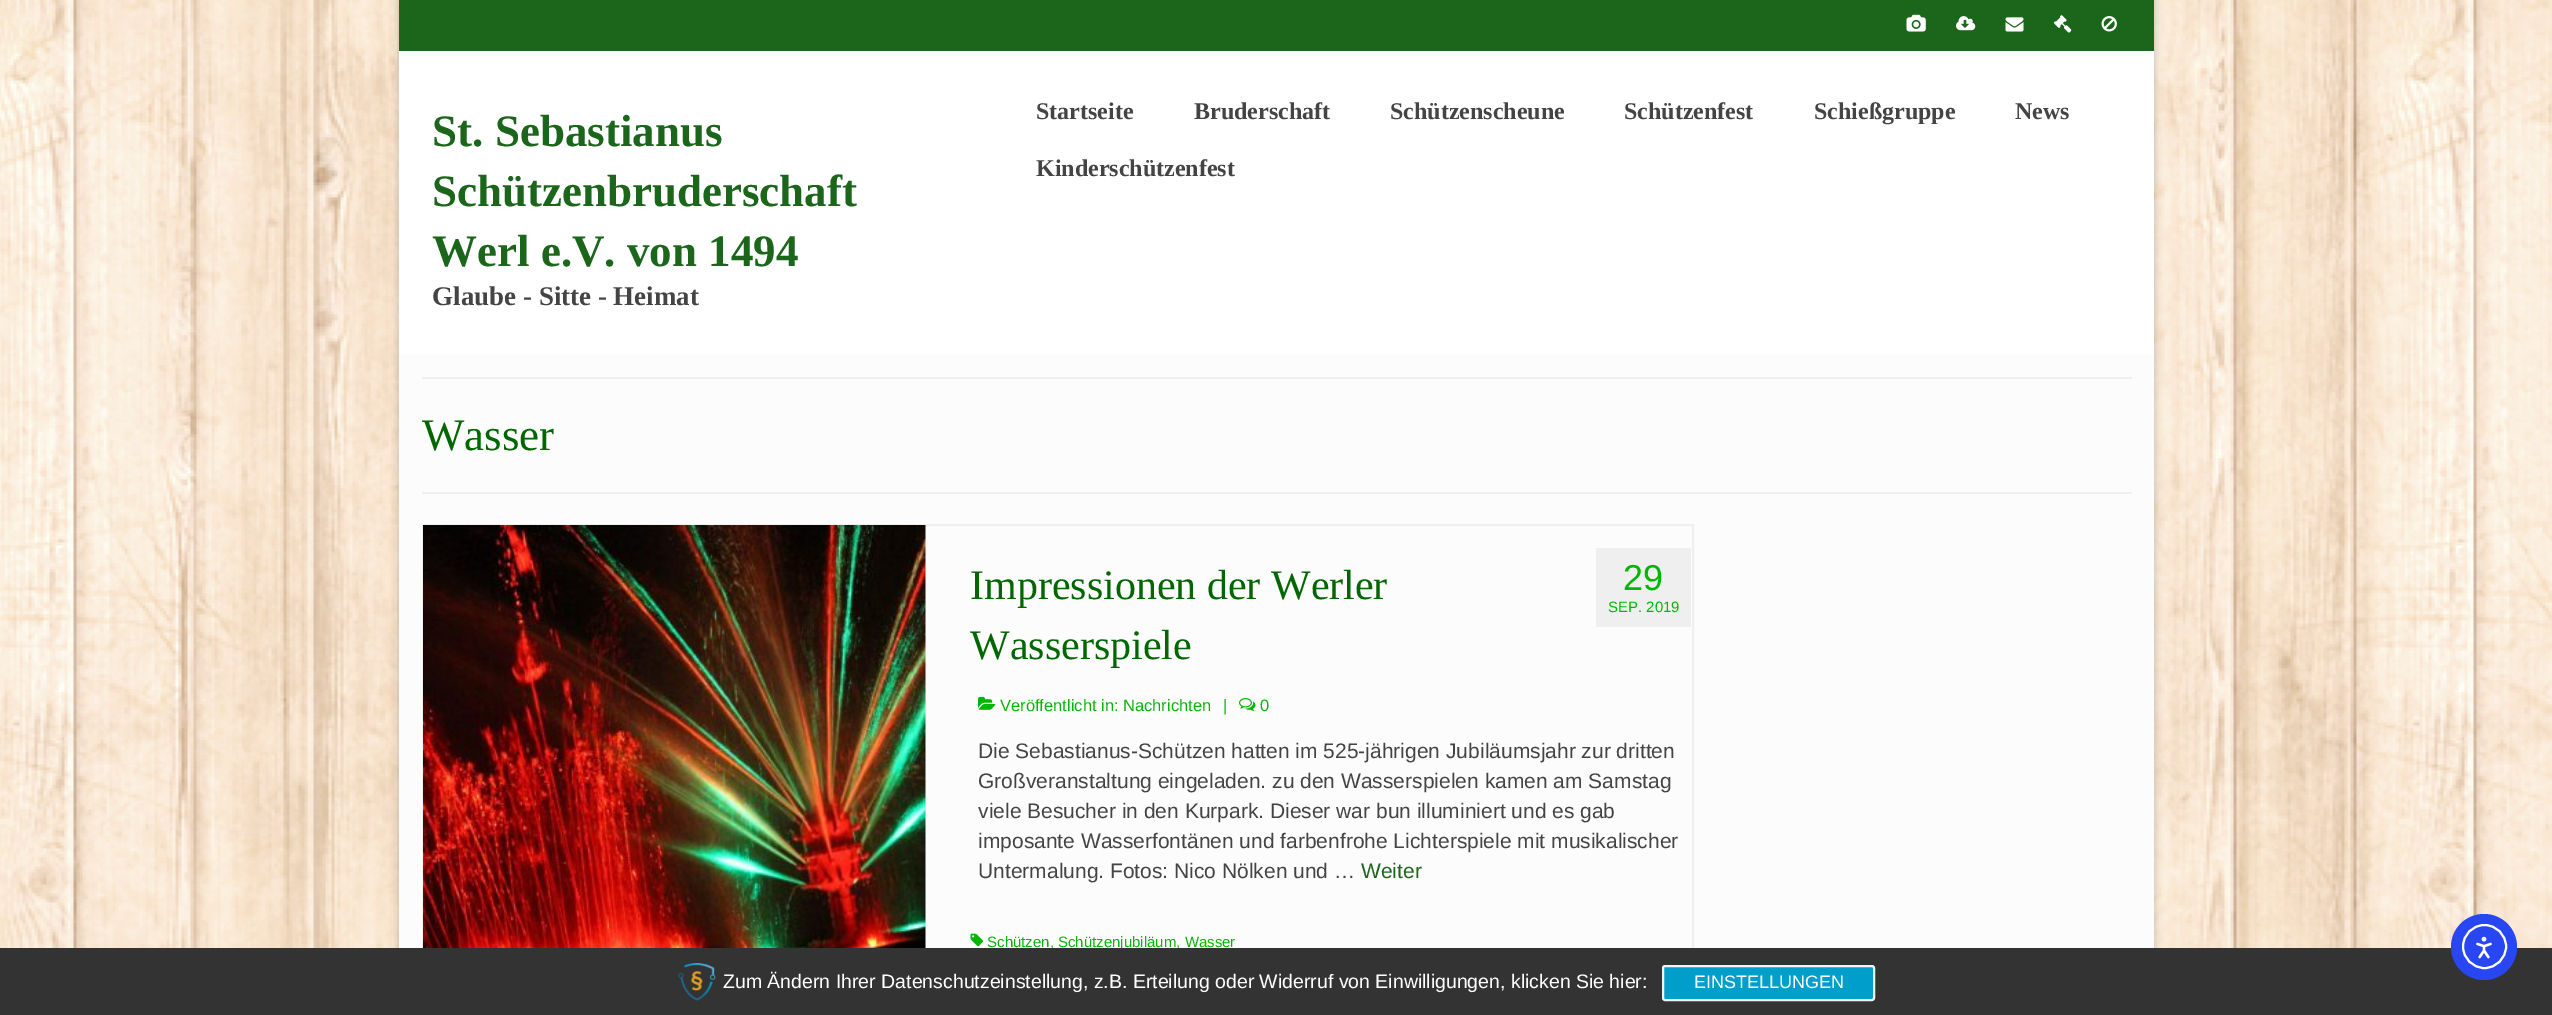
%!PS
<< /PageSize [2552 1015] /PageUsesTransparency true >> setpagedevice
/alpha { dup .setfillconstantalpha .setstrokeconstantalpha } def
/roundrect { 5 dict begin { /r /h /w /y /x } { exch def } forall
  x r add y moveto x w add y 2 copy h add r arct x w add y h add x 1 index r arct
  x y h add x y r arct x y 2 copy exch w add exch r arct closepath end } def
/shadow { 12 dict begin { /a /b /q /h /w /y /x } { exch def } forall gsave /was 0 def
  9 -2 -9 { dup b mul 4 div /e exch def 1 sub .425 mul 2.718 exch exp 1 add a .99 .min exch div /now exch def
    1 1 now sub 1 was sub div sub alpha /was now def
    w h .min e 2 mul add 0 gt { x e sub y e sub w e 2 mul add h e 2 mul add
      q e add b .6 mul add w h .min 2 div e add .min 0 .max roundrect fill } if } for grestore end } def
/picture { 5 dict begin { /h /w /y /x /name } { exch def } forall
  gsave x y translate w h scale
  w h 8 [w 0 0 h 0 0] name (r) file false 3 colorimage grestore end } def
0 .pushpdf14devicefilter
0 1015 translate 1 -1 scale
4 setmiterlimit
1 setgray
0 0 2552 1015 rectfill
(img1.rgb) 0 0 2552 948 picture
0 setgray
398 -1 1758 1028 0 4 0.16 shadow
1 setgray
399 51 1755 303 rectfill
0.106 0.4 0.106 setrgbcolor
399 0 1755 51 rectfill
(img2.rgb) 1906 14 20 18 picture
(img3.rgb) 1956 16 20 15 picture
(img4.rgb) 2005 17 19 15 picture
(img5.rgb) 2053 15 19 18 picture
(img6.rgb) 2101 16 16 16 picture
/LiberationSerif-Bold [45 0 0 -45 0 0] selectfont
432 146 moveto (St. Sebastianus) show
432 206 moveto (Schützenbruderschaft) show
432 266 moveto (Werl e.V. von 1494) show
/LiberationSerif-Bold [27 0 0 -27 0 0] selectfont
0.267 setgray
432 305 moveto (Glaube - Sitte - Heimat) show
/LiberationSerif-Bold [24 0 0 -24 0 0] selectfont
1036 119 moveto (Startseite) show
1194 119 moveto (Bruderschaft) show
1390 119 moveto (Schützenscheune) show
1624 119 moveto (Schützenfest) show
1814 119 moveto (Schießgruppe) show
2015 119 moveto (News) show
1036 176 moveto (Kinderschützenfest) show
0.988 setgray
399 354 1755 594 rectfill
0.937 setgray
422 377 1710 2 rectfill
422 492 1710 2 rectfill
/LiberationSerif-Regular [45 0 0 -45 0 0] selectfont
0 0.4 0 setrgbcolor
422 450 moveto (Wasser) show
0.937 setgray
2 setlinewidth
423 525 1270 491 rectstroke
(img7.rgb) 423 525 503 423 picture
/LiberationSerif-Regular [42 0 0 -42 0 0] selectfont
0 0.4 0 setrgbcolor
970 599 moveto (Impressionen der Werler) show
970 659 moveto (Wasserspiele) show
(img8.rgb) 978 696 18 14 picture
/LiberationSans-Regular [16.5 0 0 -16.5 0 0] selectfont
0.02 0.71 0.02 setrgbcolor
1000 711 moveto (Veröffentlicht in: Nachrichten) show
1223 711 moveto (|) show
(img9.rgb) 1239 698 17 13 picture
1260 711 moveto (0) show
0.937 setgray
1596 548 95 79 rectfill
/LiberationSans-Regular [36 0 0 -36 0 0] selectfont
0.02 0.71 0.02 setrgbcolor
1623 590 moveto (29) show
/LiberationSans-Regular [15 0 0 -15 0 0] selectfont
1608 612 moveto (SEP. 2019) show
/LiberationSans-Regular [21 0 0 -21 0 0] selectfont
0.267 setgray
978 758 moveto (Die Sebastianus-Schützen hatten im 525-jährigen Jubiläumsjahr zur dritten) show
978 788 moveto (Großveranstaltung eingeladen. zu den Wasserspielen kamen am Samstag) show
978 818 moveto (viele Besucher in den Kurpark. Dieser war bun illuminiert und es gab) show
978 848 moveto (imposante Wasserfontänen und farbenfrohe Lichterspiele mit musikalischer) show
978 878 moveto (Untermalung. Fotos: Nico Nölken und …) show
0.106 0.4 0.106 setrgbcolor
1361 878 moveto (Weiter) show
(img10.rgb) 970 933 14 14 picture
/LiberationSans-Regular [15 0 0 -15 0 0] selectfont
0.02 0.71 0.02 setrgbcolor
987 947 moveto (Schützen, Schützenjubiläum, Wasser) show
0.2 setgray
0 948 2552 67 rectfill
0.157 0.278 0.953 setrgbcolor
newpath 2484 947 33 0 360 arc closepath fill
1 setgray
newpath 2484.5 946.5 21.5 0 360 arc closepath stroke
(img11.rgb) 2476 936 16 23 picture
(img12.rgb) 678 963 38 38 picture
/LiberationSans-Regular [19.5 0 0 -19.5 0 0] selectfont
723 988 moveto (Zum Ändern Ihrer Datenschutzeinstellung, z.B. Erteilung oder Widerruf von Einwilligungen, klicken Sie hier:) show
0 0.62 0.796 setrgbcolor
1663 966 211 34 2 roundrect gsave fill grestore
0.953 setgray
stroke
/LiberationSans-Regular [18 0 0 -18 0 0] selectfont
1 setgray
1694 988 moveto (EINSTELLUNGEN) show
.poppdf14devicefilter showpage
